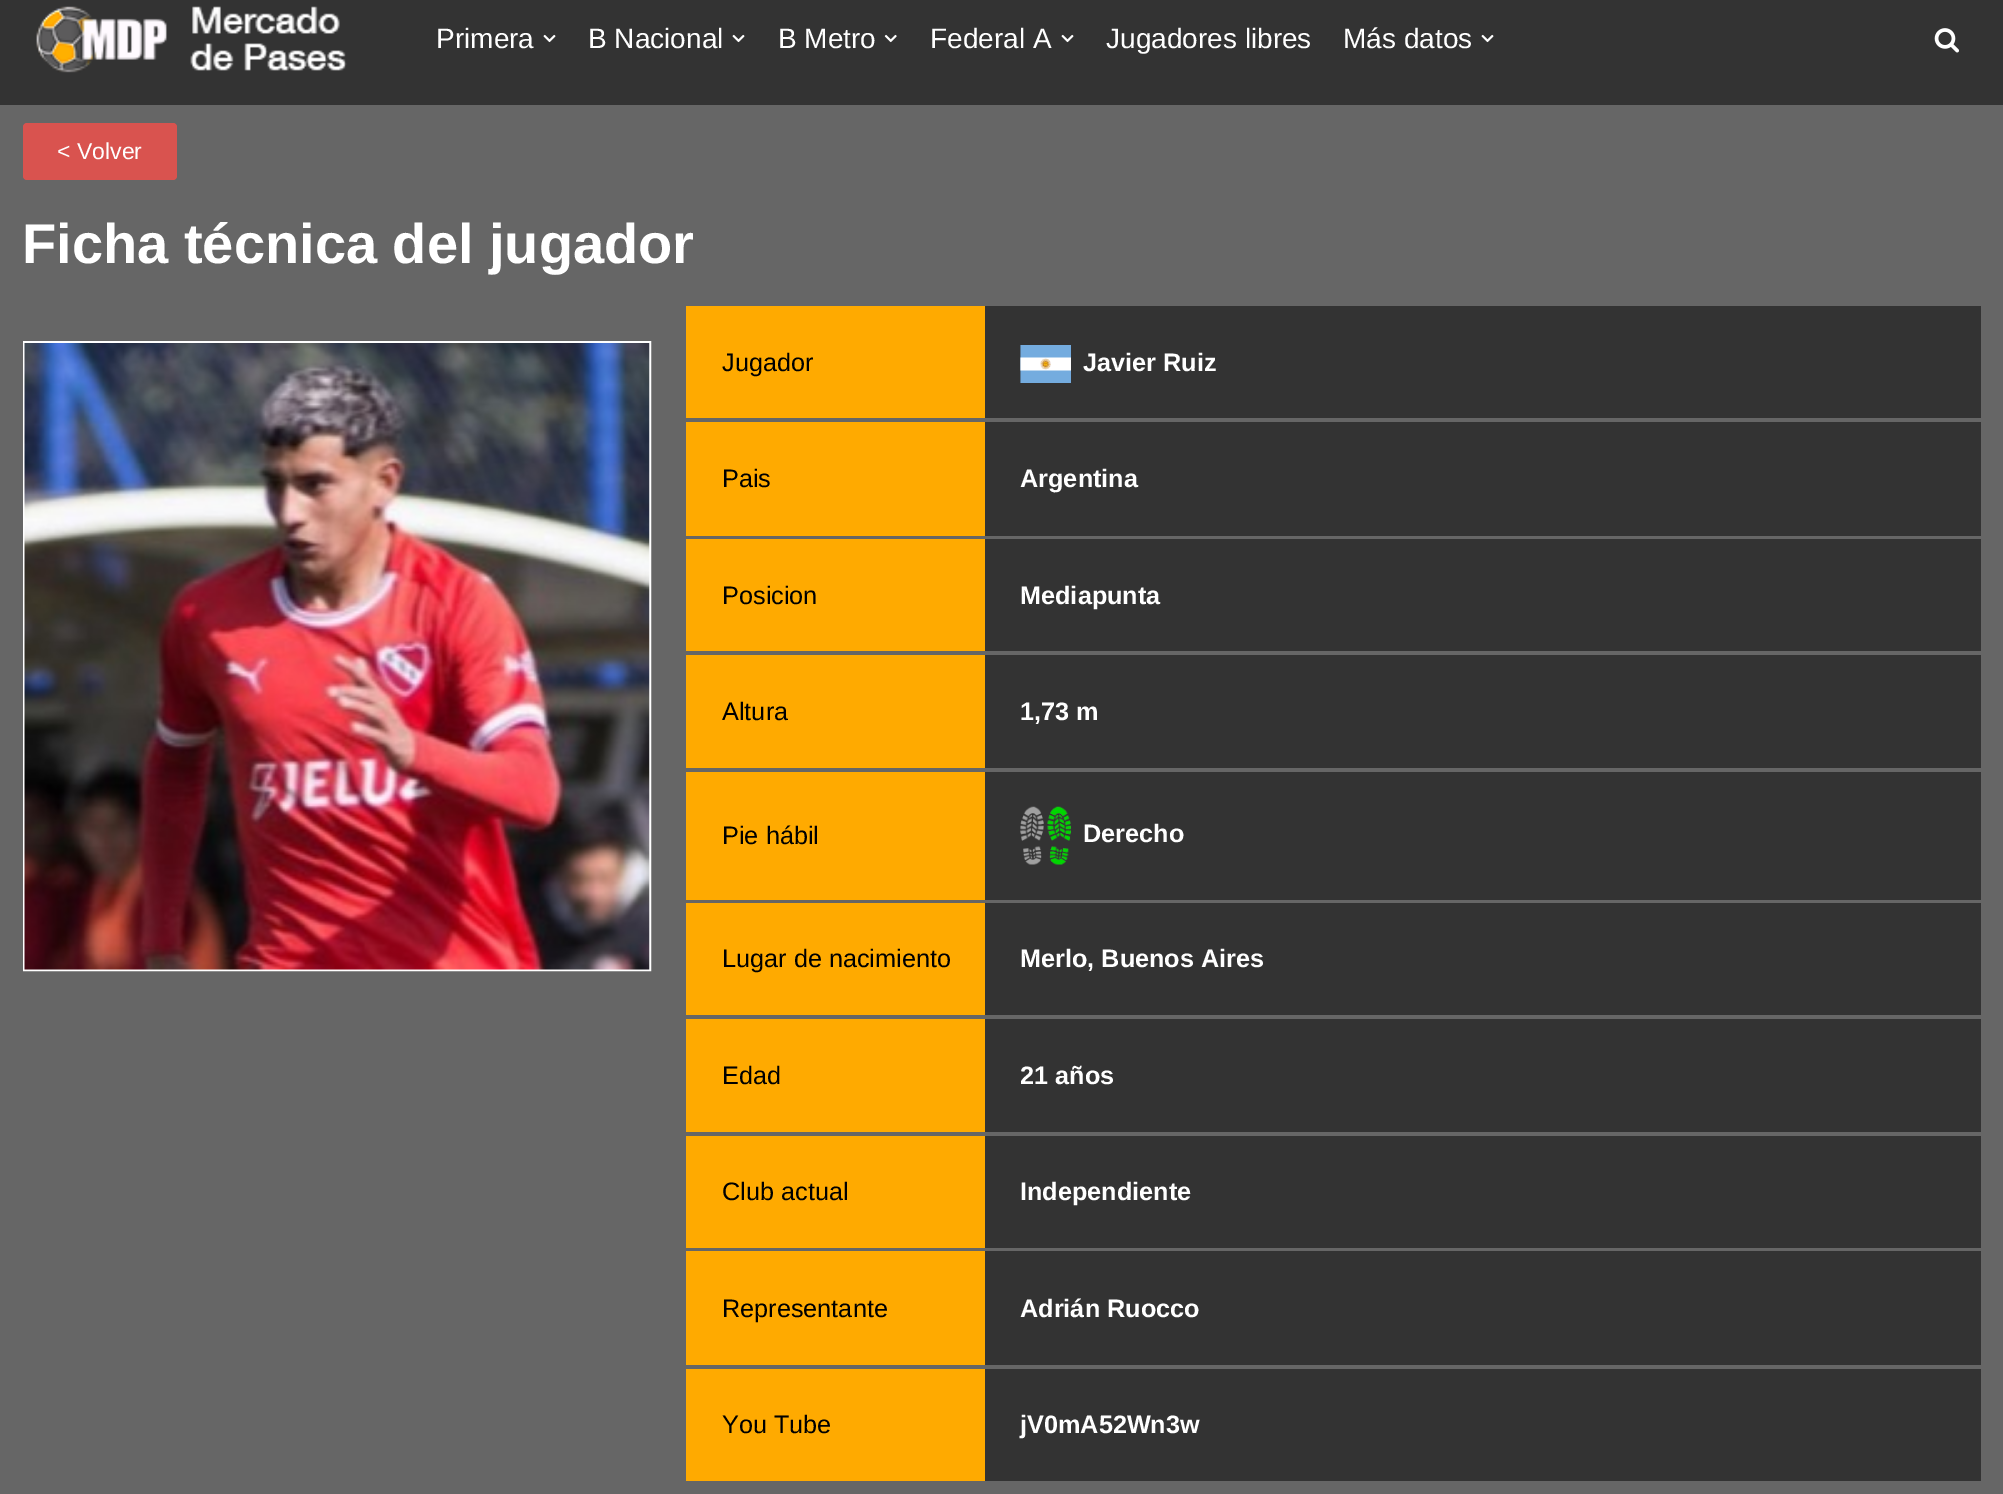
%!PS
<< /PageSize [2003 1494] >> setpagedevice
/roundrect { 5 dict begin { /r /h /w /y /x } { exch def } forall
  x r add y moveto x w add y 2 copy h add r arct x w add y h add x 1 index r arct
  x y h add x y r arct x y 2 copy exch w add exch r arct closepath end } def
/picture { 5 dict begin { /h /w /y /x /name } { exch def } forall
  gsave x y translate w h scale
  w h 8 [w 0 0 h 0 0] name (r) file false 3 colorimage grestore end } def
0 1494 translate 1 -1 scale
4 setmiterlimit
0.4 setgray
0 0 2003 1494 rectfill
0.2 setgray
0 0 2003 105 rectfill
(img1.rgb) 36 6 311 67 picture
/LiberationSans-Regular [28 0 0 -28 0 0] selectfont
1 setgray
436 48 moveto (Primera) show
(img2.rgb) 543 34 13 9 picture
588 48 moveto (B Nacional) show
(img2.rgb) 732 34 13 9 picture
778 48 moveto (B Metro) show
(img3.rgb) 884 34 13 9 picture
930 48 moveto (Federal A) show
(img2.rgb) 1061 34 13 9 picture
1106 48 moveto (Jugadores libres) show
1343 48 moveto (Más datos) show
(img2.rgb) 1481 34 13 9 picture
(img4.rgb) 1934 28 25 25 picture
0.851 0.325 0.31 setrgbcolor
23 123 154 57 4 roundrect fill
/LiberationSans-Regular [23 0 0 -23 0 0] selectfont
1 setgray
57 159 moveto (< Volver) show
/LiberationSans-Bold [56 0 0 -56 0 0] selectfont
22 263 moveto (Ficha técnica del jugador) show
2 setlinewidth
24 342 626 628 rectstroke
(img5.rgb) 24 343 626 627 picture
1 0.667 0 setrgbcolor
686 306 299 112 rectfill
/LiberationSans-Regular [25.25 0 0 -25.25 0 0] selectfont
0 setgray
722 371 moveto (Jugador) show
0.2 setgray
985 306 996 112 rectfill
(img6.rgb) 1020 345 51 38 picture
/LiberationSans-Bold [25.25 0 0 -25.25 0 0] selectfont
1 setgray
1083 371 moveto (Javier Ruiz) show
1 0.667 0 setrgbcolor
686 422 299 114 rectfill
/LiberationSans-Regular [25.25 0 0 -25.25 0 0] selectfont
0 setgray
722 487 moveto (Pais) show
0.2 setgray
985 422 996 114 rectfill
/LiberationSans-Bold [25.25 0 0 -25.25 0 0] selectfont
1 setgray
1020 487 moveto (Argentina) show
1 0.667 0 setrgbcolor
686 539 299 112 rectfill
/LiberationSans-Regular [25.25 0 0 -25.25 0 0] selectfont
0 setgray
722 604 moveto (Posicion) show
0.2 setgray
985 539 996 112 rectfill
/LiberationSans-Bold [25.25 0 0 -25.25 0 0] selectfont
1 setgray
1020 604 moveto (Mediapunta) show
1 0.667 0 setrgbcolor
686 655 299 113 rectfill
/LiberationSans-Regular [25.25 0 0 -25.25 0 0] selectfont
0 setgray
722 720 moveto (Altura) show
0.2 setgray
985 655 996 113 rectfill
/LiberationSans-Bold [25.25 0 0 -25.25 0 0] selectfont
1 setgray
1020 720 moveto (1,73 m) show
1 0.667 0 setrgbcolor
686 772 299 128 rectfill
/LiberationSans-Regular [25.25 0 0 -25.25 0 0] selectfont
0 setgray
722 844 moveto (Pie hábil) show
0.2 setgray
985 772 996 128 rectfill
(img7.rgb) 1020 806 51 59 picture
/LiberationSans-Bold [25.25 0 0 -25.25 0 0] selectfont
1 setgray
1083 842 moveto (Derecho) show
1 0.667 0 setrgbcolor
686 903 299 112 rectfill
/LiberationSans-Regular [25.25 0 0 -25.25 0 0] selectfont
0 setgray
722 967 moveto (Lugar de nacimiento) show
0.2 setgray
985 903 996 112 rectfill
/LiberationSans-Bold [25.25 0 0 -25.25 0 0] selectfont
1 setgray
1020 967 moveto (Merlo, Buenos Aires) show
1 0.667 0 setrgbcolor
686 1019 299 113 rectfill
/LiberationSans-Regular [25.25 0 0 -25.25 0 0] selectfont
0 setgray
722 1084 moveto (Edad) show
0.2 setgray
985 1019 996 113 rectfill
/LiberationSans-Bold [25.25 0 0 -25.25 0 0] selectfont
1 setgray
1020 1084 moveto (21 años) show
1 0.667 0 setrgbcolor
686 1136 299 112 rectfill
/LiberationSans-Regular [25.25 0 0 -25.25 0 0] selectfont
0 setgray
722 1200 moveto (Club actual) show
0.2 setgray
985 1136 996 112 rectfill
/LiberationSans-Bold [25.25 0 0 -25.25 0 0] selectfont
1 setgray
1020 1200 moveto (Independiente) show
1 0.667 0 setrgbcolor
686 1251 299 114 rectfill
/LiberationSans-Regular [25.25 0 0 -25.25 0 0] selectfont
0 setgray
722 1317 moveto (Representante) show
0.2 setgray
985 1251 996 114 rectfill
/LiberationSans-Bold [25.25 0 0 -25.25 0 0] selectfont
1 setgray
1020 1317 moveto (Adrián Ruocco) show
1 0.667 0 setrgbcolor
686 1369 299 112 rectfill
/LiberationSans-Regular [25.25 0 0 -25.25 0 0] selectfont
0 setgray
722 1433 moveto (You Tube) show
0.2 setgray
985 1369 996 112 rectfill
/LiberationSans-Bold [25.25 0 0 -25.25 0 0] selectfont
1 setgray
1020 1433 moveto (jV0mA52Wn3w) show
showpage
